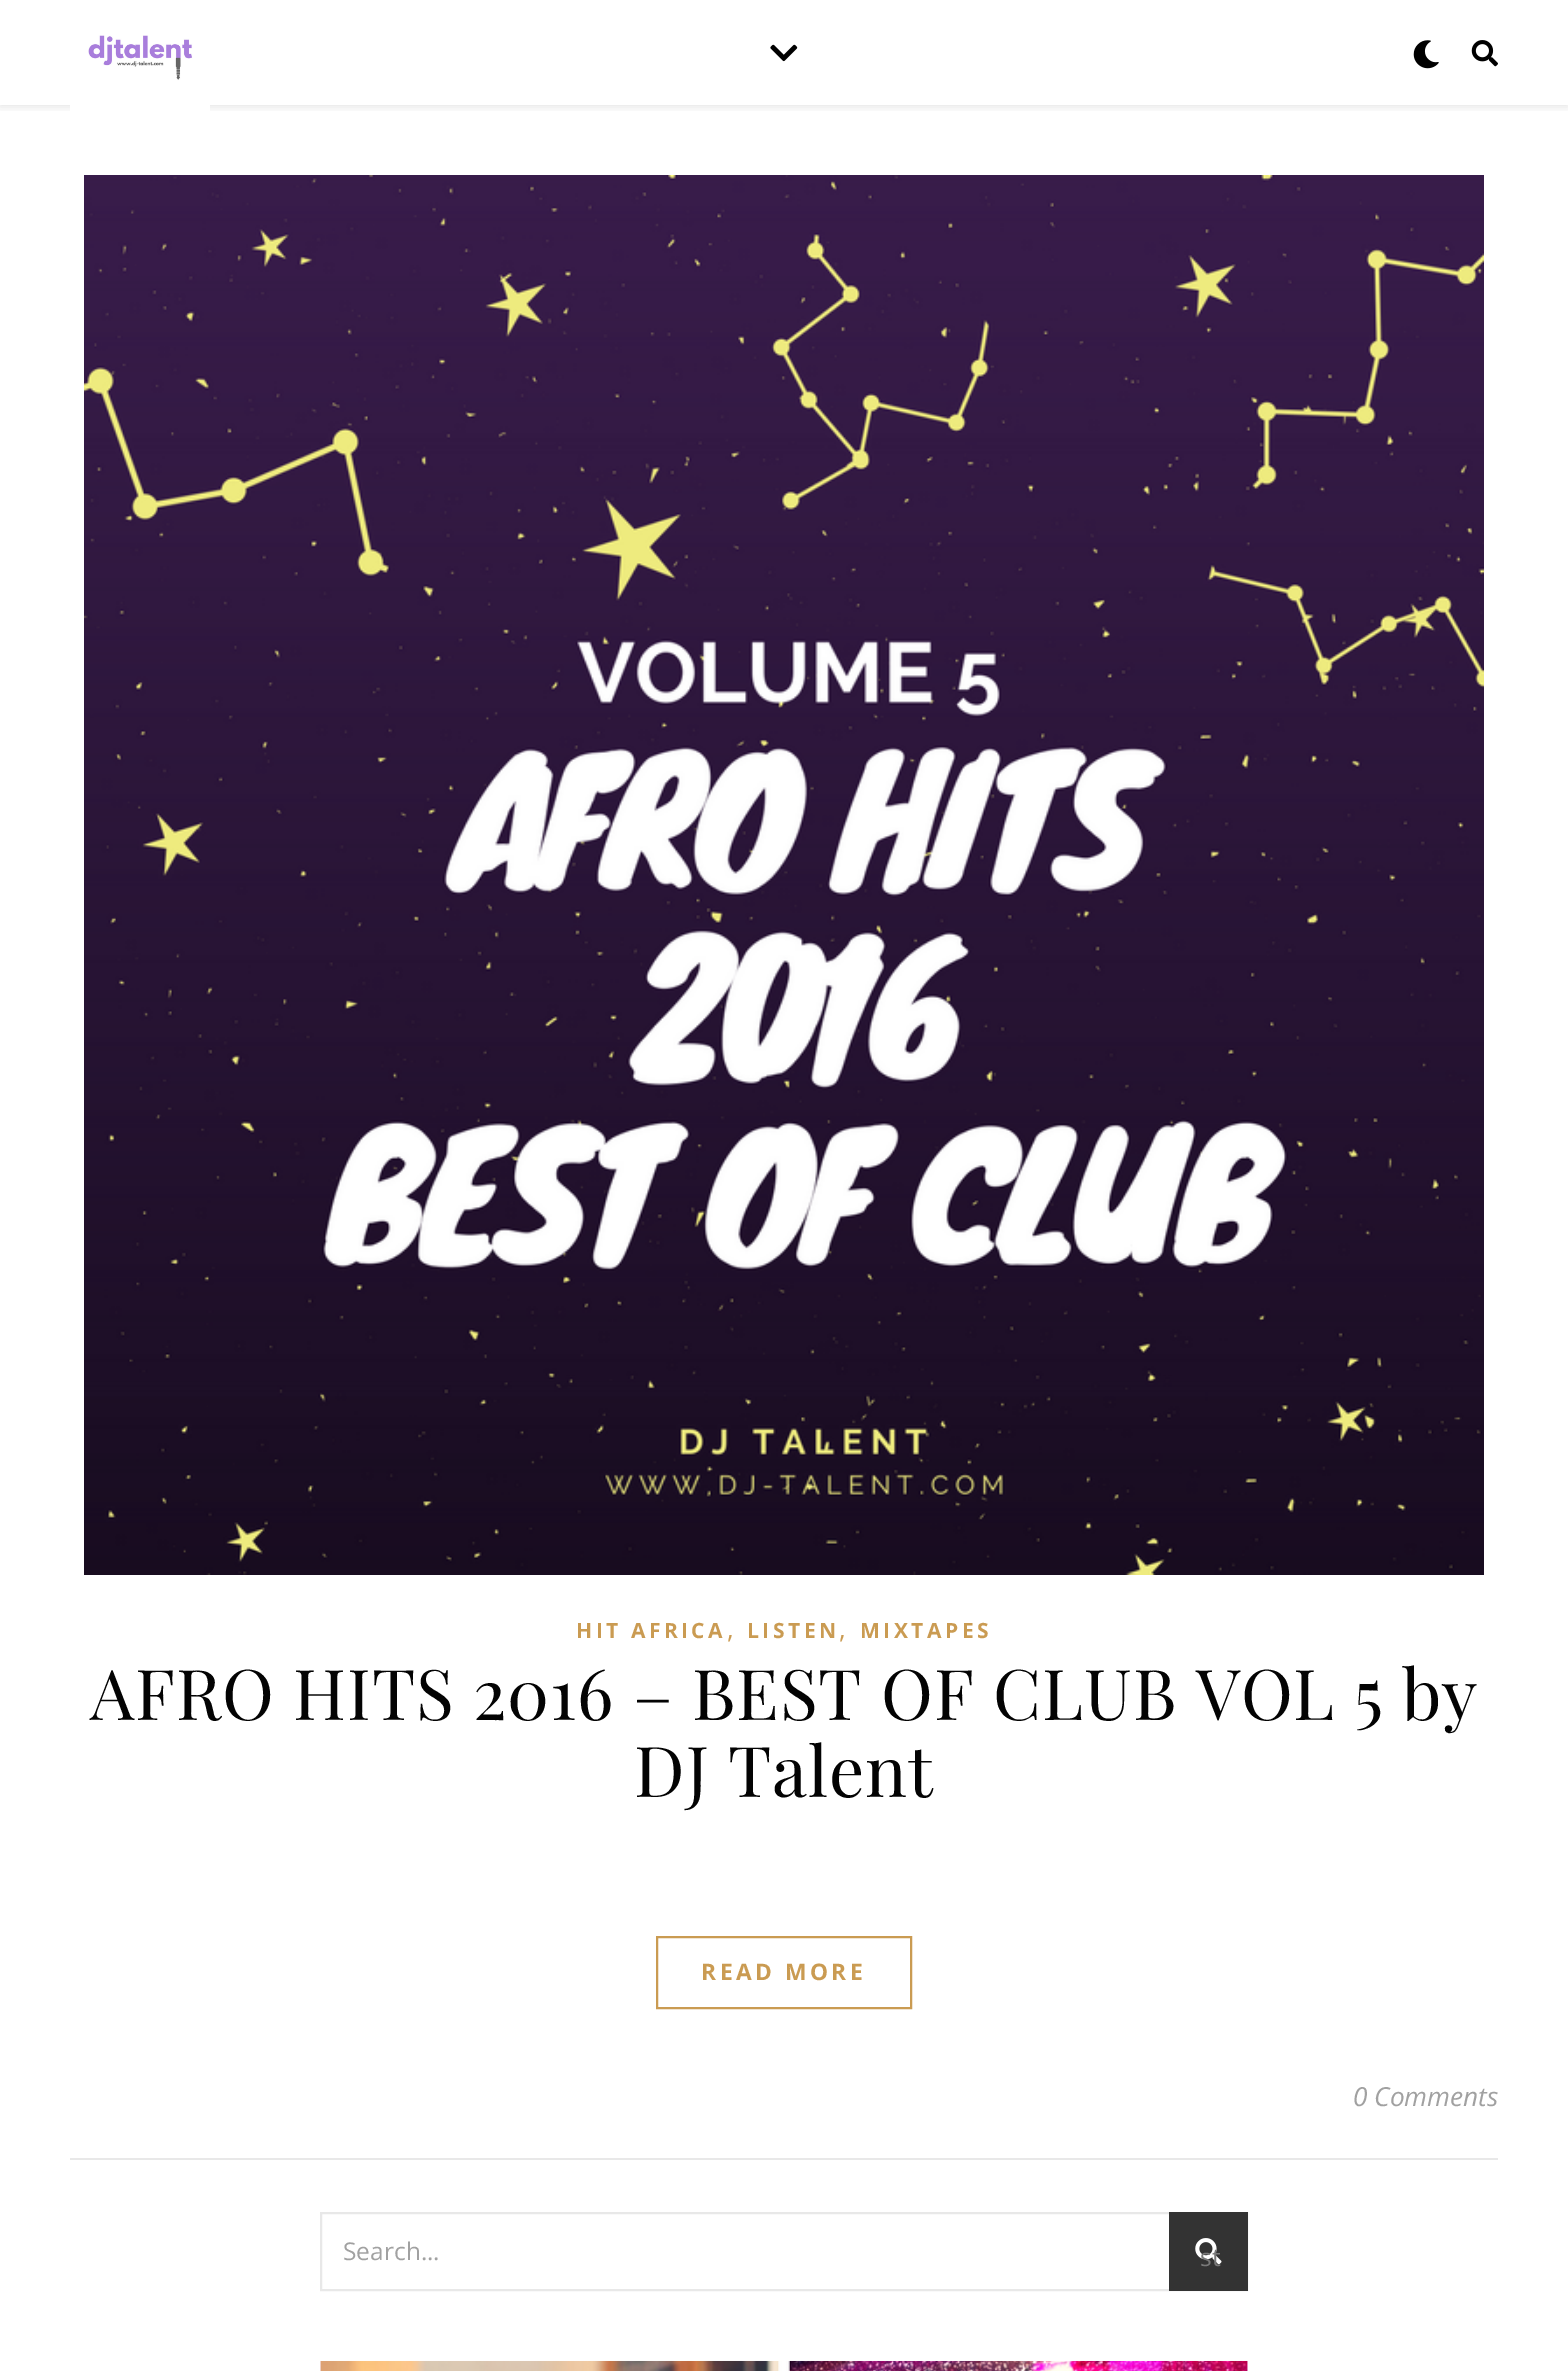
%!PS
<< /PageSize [1568 2371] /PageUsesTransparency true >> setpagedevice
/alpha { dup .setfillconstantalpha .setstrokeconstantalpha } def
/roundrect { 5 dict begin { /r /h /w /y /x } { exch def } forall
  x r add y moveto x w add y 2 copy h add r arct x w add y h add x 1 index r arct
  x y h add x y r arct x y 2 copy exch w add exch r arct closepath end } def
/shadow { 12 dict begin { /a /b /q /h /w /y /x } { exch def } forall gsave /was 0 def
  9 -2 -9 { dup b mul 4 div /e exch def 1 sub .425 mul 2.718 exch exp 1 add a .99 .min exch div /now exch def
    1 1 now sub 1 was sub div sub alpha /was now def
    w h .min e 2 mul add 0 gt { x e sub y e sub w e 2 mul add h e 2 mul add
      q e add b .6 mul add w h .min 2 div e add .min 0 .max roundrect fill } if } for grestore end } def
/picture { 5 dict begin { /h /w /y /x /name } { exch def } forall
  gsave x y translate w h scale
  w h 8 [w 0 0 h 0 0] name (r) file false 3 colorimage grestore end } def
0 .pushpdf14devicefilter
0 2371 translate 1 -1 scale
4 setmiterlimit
1 setgray
0 0 1568 2371 rectfill
gsave
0 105 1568 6 rectclip
0 setgray
0 2 1568 105 0 4.5 0.1 shadow
grestore
(img1.rgb) 70 35 140 77 picture
(img2.rgb) 770 44 28 18 picture
(img3.rgb) 1413 40 26 29 picture
(img4.rgb) 1471 40 27 27 picture
(img5.rgb) 84 175 1400 1400 picture
/OpenSans-Bold [21 0 0 -21 0 0] selectfont
0.792 0.608 0.322 setrgbcolor
576 1638 moveto 3.5 0 (HIT AFRICA) ashow
/OpenSans-Regular [26.25 0 0 -26.25 0 0] selectfont
727 1638 moveto (,) show
/OpenSans-Bold [21 0 0 -21 0 0] selectfont
747 1638 moveto 3.5 0 (LISTEN) ashow
/OpenSans-Regular [26.25 0 0 -26.25 0 0] selectfont
839 1638 moveto (,) show
/OpenSans-Bold [21 0 0 -21 0 0] selectfont
860 1638 moveto 3.5 0 (MIXTAPES) ashow
/PlayfairDisplay-Regular [70 0 0 -70 0 0] selectfont
0.012 setgray
90 1720 moveto 0.9 0 (AFRO HITS 2016 – BEST OF CLUB VOL 5 by) ashow
634 1797 moveto 0.9 0 (DJ Talent) ashow
0.792 0.608 0.322 setrgbcolor
2 setlinewidth
657 1937 254 71 rectstroke
/OpenSans-Bold [22.75 0 0 -22.75 0 0] selectfont
701 1980 moveto 3.5 0 (READ MORE) ashow
0.91 setgray
70 2158 1428 2 rectfill
/OpenSans-Italic [26.25 0 0 -26.25 0 0] selectfont
0.631 setgray
1353 2106 moveto (0 Comments) show
0.91 setgray
321 2213 926 77 rectstroke
/OpenSans-Regular [24.5 0 0 -24.5 0 0] selectfont
0.631 setgray
343 2260 moveto (Search...) show
0.2 setgray
1169 2212 79 79 rectfill
(img6.rgb) 1195 2238 27 27 picture
0.475 setgray
1200 2266 moveto (st) show
(img7.rgb) 320 2360 928 11 picture
.poppdf14devicefilter showpage
